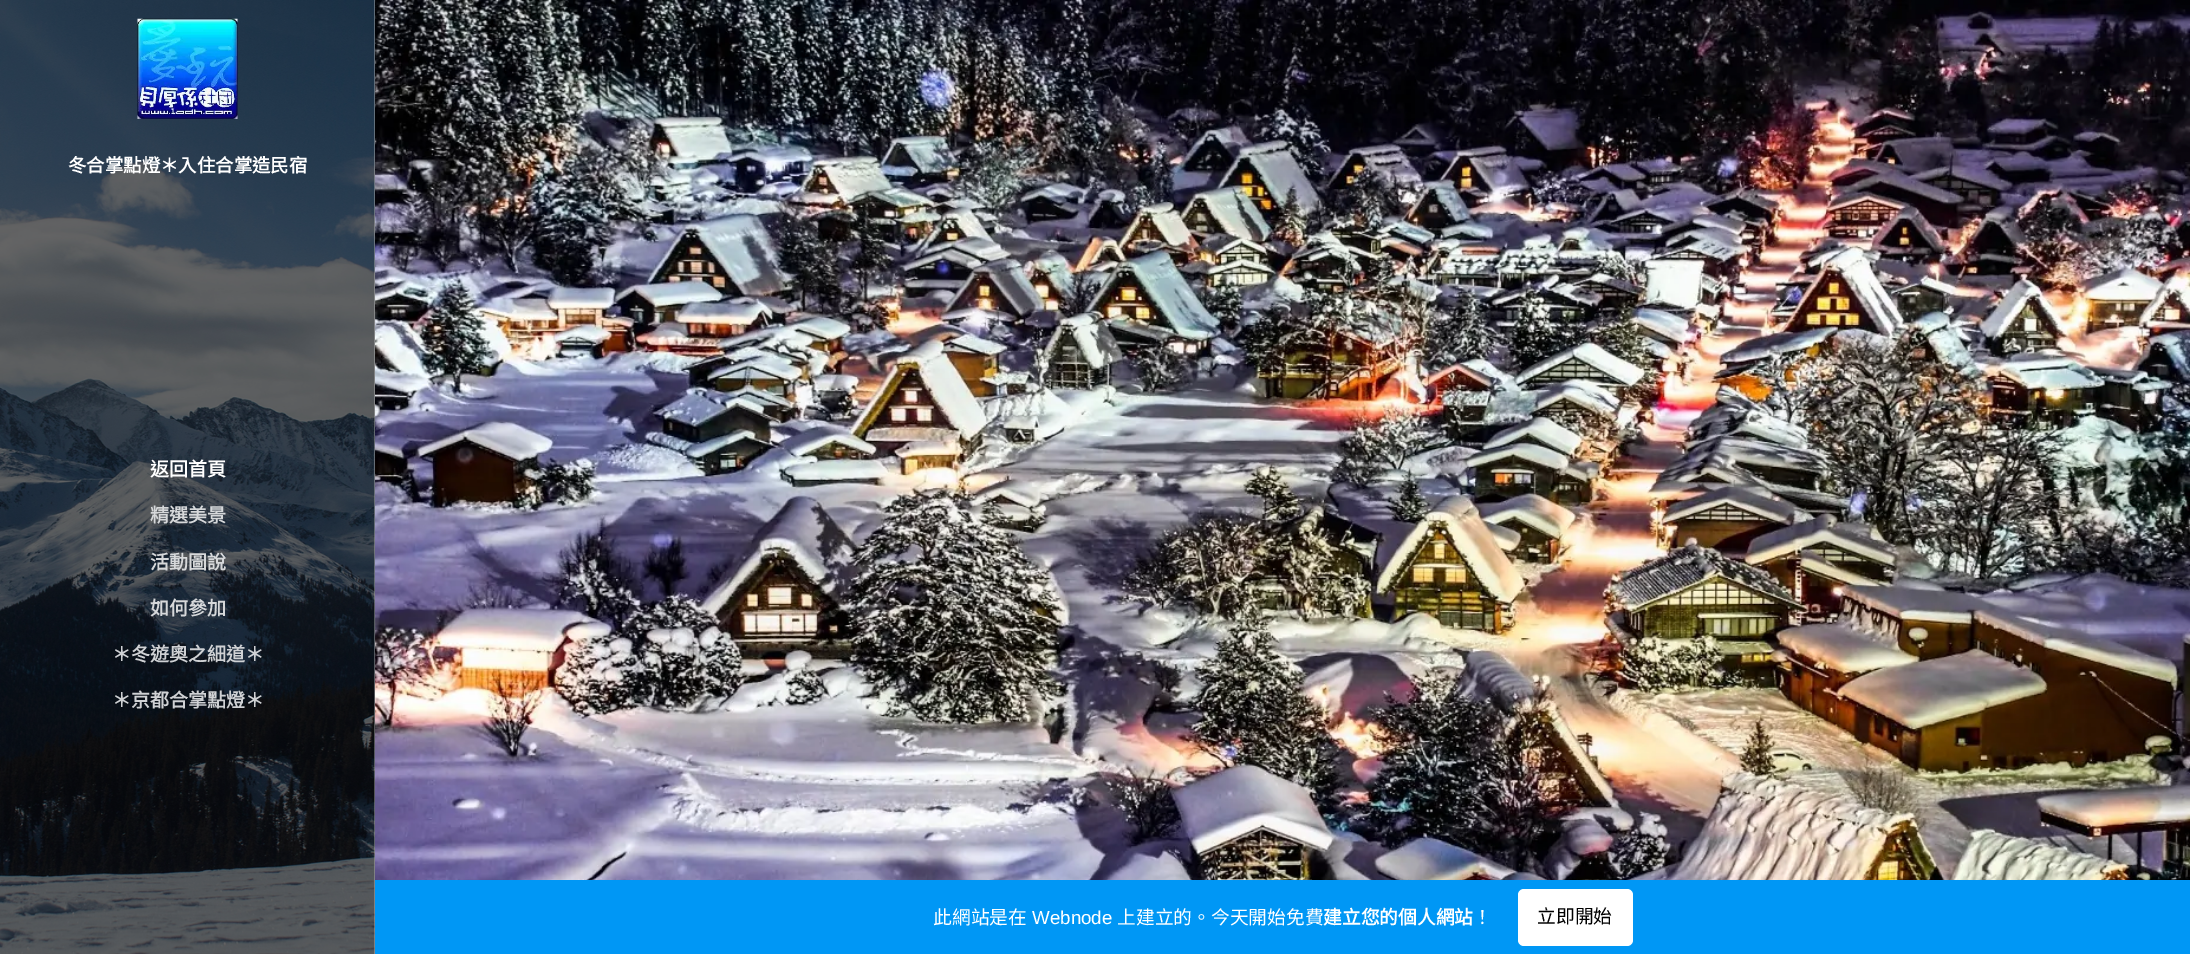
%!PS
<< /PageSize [2190 954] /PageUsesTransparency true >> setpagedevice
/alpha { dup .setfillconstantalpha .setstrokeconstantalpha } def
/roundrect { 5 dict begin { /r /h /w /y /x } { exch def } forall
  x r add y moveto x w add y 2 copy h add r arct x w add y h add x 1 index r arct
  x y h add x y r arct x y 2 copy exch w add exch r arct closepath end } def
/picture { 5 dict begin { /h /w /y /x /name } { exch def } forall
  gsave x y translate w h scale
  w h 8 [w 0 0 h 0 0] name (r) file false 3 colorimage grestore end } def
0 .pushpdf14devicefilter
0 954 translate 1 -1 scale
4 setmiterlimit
1 setgray
0 0 2190 954 rectfill
(img1.rgb) 0 0 375 954 picture
(img2.rgb) 137 18 101 101 picture
/NotoSansCJKTC-Bold [18.4 0 0 -18.4 0 0] selectfont
68 172 moveto (冬合掌點燈＊入住合掌造民宿) show
/NotoSansCJKTC-Bold [19 0 0 -19 0 0] selectfont
150 476 moveto (返回首頁) show
0.839 0.847 0.855 setrgbcolor
150 522 moveto (精選美景) show
150 569 moveto (活動圖說) show
150 615 moveto (如何參加) show
0.812 0.82 0.831 setrgbcolor
112 661 moveto (＊冬遊奧之細道＊) show
112 707 moveto (＊京都合掌點燈＊) show
0.3 alpha
1 setgray
374 0 1 954 rectfill
1 alpha
(img3.rgb) 375 0 1815 880 picture
0 0.592 0.961 setrgbcolor
375 880 1815 74 rectfill
/NotoSansCJKTC-Regular [18.75 0 0 -18.75 0 0] selectfont
1 setgray
933 924 moveto (此網站是在) show
/LiberationSans-Regular [18.75 0 0 -18.75 0 0] selectfont
1032 924 moveto (Webnode) show
/NotoSansCJKTC-Regular [18.75 0 0 -18.75 0 0] selectfont
1117 924 moveto (上建立的。今天開始免費) show
/NotoSansCJKTC-Bold [18.75 0 0 -18.75 0 0] selectfont
1323 924 moveto (建立您的個人網站) show
/NotoSansCJKTC-Regular [18.75 0 0 -18.75 0 0] selectfont
1473 924 moveto (！) show
1518 889 115 57 6 roundrect fill
0 setgray
1537 923 moveto (立即開始) show
.poppdf14devicefilter showpage
